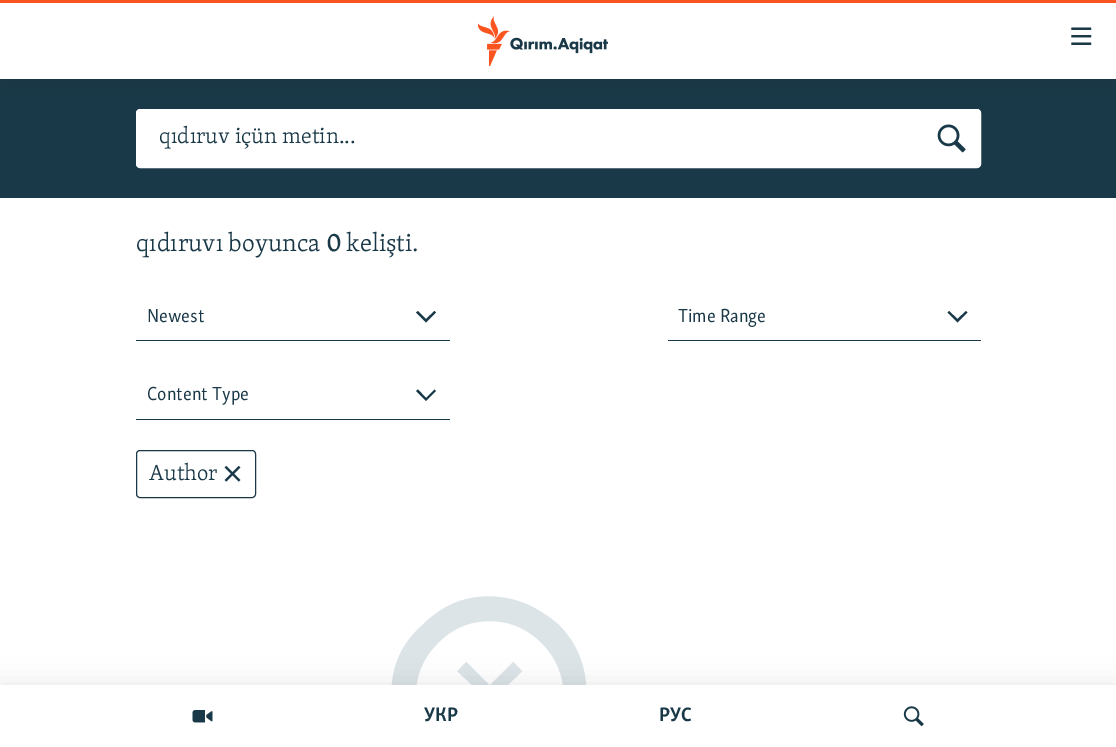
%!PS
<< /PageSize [1116 747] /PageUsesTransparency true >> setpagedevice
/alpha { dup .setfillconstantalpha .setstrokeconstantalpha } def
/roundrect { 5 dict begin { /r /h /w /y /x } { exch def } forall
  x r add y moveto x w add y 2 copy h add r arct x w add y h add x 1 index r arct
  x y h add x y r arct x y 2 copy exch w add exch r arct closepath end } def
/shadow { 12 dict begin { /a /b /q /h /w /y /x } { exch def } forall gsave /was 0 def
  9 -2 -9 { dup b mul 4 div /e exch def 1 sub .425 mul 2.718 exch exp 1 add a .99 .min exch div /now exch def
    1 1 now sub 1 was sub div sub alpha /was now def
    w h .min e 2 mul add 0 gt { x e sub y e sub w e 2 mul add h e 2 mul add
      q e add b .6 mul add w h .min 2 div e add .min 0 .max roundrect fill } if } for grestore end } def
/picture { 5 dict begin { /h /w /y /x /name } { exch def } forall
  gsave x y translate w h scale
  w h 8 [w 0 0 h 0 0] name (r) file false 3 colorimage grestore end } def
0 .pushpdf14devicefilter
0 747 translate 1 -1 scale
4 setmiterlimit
1 setgray
0 0 1116 747 rectfill
0.102 0.224 0.282 setrgbcolor
0 79 1116 119 rectfill
1 setgray
136.5 109.5 844 58 3.5 roundrect gsave fill grestore
stroke
/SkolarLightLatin-Light [22.5 0 0 -22.5 0 0] selectfont
0.102 0.224 0.282 setrgbcolor
159 143 moveto (qıdıruv içün metin...) show
(img1.rgb) 937 124 29 29 picture
/SkolarLightLatin-Light [25.25 0 0 -25.25 0 0] selectfont
136 251 moveto (qıdıruvı boyunca) show
/SkolarLightLatin-Bold [25.25 0 0 -25.25 0 0] selectfont
326 251 moveto (0) show
/SkolarLightLatin-Light [25.25 0 0 -25.25 0 0] selectfont
346 251 moveto (kelişti.) show
136 340 314 1 rectfill
/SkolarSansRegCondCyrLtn-Regular [19.5 0 0 -19.5 0 0] selectfont
147 322 moveto (Newest) show
newpath 416 312.5 moveto 426 322.5 lineto 436 312.5 lineto 434.5 311 lineto 426 319 lineto 418 311 lineto closepath fill
668 340 313 1 rectfill
678 322 moveto (Time Range) show
newpath 947.5 312.5 moveto 957.5 322.5 lineto 967.5 312.5 lineto 966 311 lineto 957.5 319 lineto 949 311 lineto closepath fill
136 419 314 1 rectfill
147 400 moveto (Content Type) show
newpath 416 391 moveto 426 401 lineto 436 391 lineto 434.5 389.5 lineto 426 398 lineto 418 389.5 lineto closepath fill
136.5 450.5 119 47 3.5 roundrect stroke
/SkolarLightLatin-Light [22.5 0 0 -22.5 0 0] selectfont
149 480 moveto (Author) show
(img2.rgb) 224 465 17 17 picture
(img3.rgb) 391 596 196 89 picture
0 setgray
0 0 1116 79 0 12.5 0.1 shadow
1 setgray
0 3 1116 76 rectfill
0.98 0.329 0.125 setrgbcolor
0 0 1116 3 rectfill
(img4.rgb) 478 16 130 50 picture
(img5.rgb) 1071 27 21 18 picture
0 setgray
0 685 1116 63 0 12.5 0.1 shadow
1 setgray
0 685 1116 62 rectfill
(img6.rgb) 192 710 21 13 picture
/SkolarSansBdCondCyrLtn-Bold [20 0 0 -20 0 0] selectfont
0.102 0.224 0.282 setrgbcolor
424 721 moveto (УКР) show
659 721 moveto (РУС) show
(img7.rgb) 903 706 21 21 picture
.poppdf14devicefilter showpage
